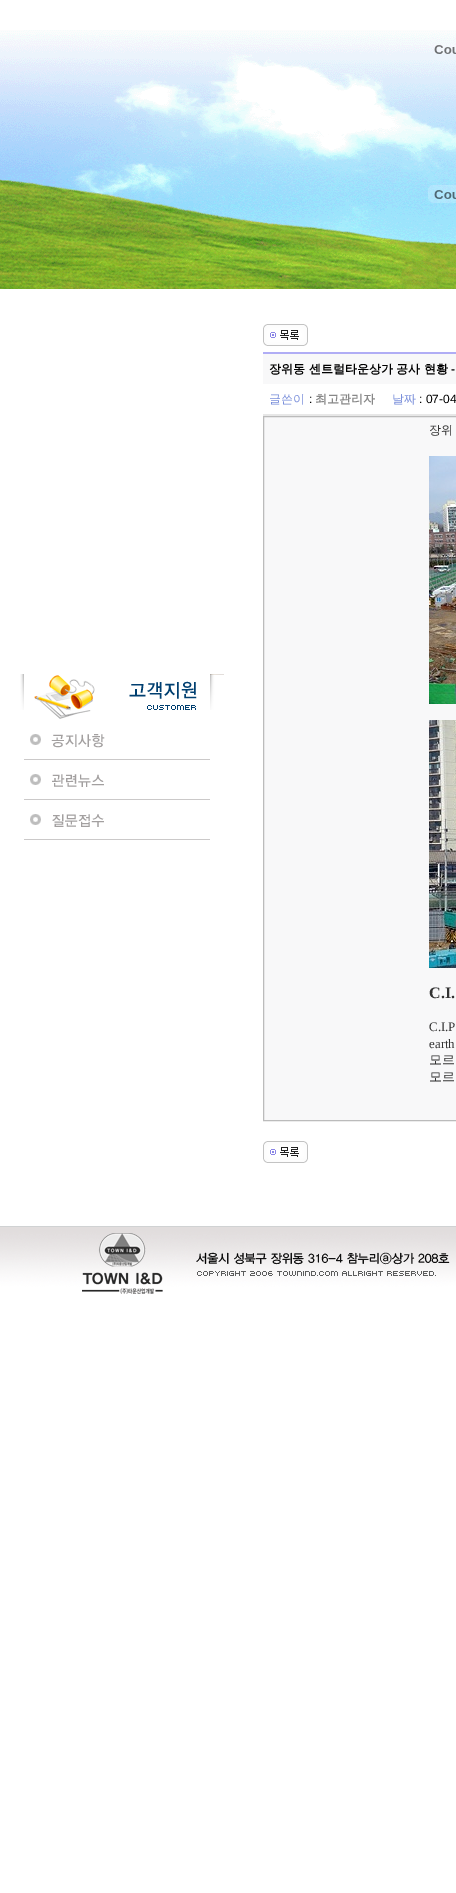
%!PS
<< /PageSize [456 1893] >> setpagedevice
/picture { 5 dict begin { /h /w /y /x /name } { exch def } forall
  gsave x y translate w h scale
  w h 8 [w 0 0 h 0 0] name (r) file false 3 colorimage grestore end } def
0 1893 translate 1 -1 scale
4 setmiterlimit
1 setgray
0 0 456 1893 rectfill
(img1.rgb) 0 30 456 259 picture
(img2.rgb) 434 45 22 9 picture
(img3.rgb) 428 185 28 18 picture
(img4.rgb) 20 674 4 36 picture
(img5.rgb) 34 675 163 44 picture
(img6.rgb) 210 674 14 36 picture
(img7.rgb) 24 734 186 26 picture
(img8.rgb) 24 774 186 26 picture
(img9.rgb) 24 814 186 26 picture
(img10.rgb) 263 324 45 22 picture
0.69 0.678 0.961 setrgbcolor
263 352 193 2 rectfill
0.973 0.973 0.976 setrgbcolor
263 354 193 30 rectfill
/WenQuanYiZenHei-Bold [12 0 0 -12 0 0] selectfont
0 setgray
269 373 moveto (장위동 센트럴타운상가 공사 현황) show
/LiberationSans-Bold [12 0 0 -12 0 0] selectfont
451 373 moveto (-) show
/WenQuanYiZenHei-Medium [12 0 0 -12 0 0] selectfont
0.478 0.561 0.859 setrgbcolor
269 403 moveto (글쓴이) show
/LiberationSans-Regular [12 0 0 -12 0 0] selectfont
0 setgray
309 403 moveto (:) show
/WenQuanYiZenHei-Bold [12 0 0 -12 0 0] selectfont
0.533 setgray
315 403 moveto (최고관리자) show
/WenQuanYiZenHei-Medium [12 0 0 -12 0 0] selectfont
0.478 0.561 0.859 setrgbcolor
392 403 moveto (날짜) show
/LiberationSans-Regular [12 0 0 -12 0 0] selectfont
0 setgray
419 403 moveto (: 07-04) show
0.906 setgray
263 414 193 2 rectfill
0.973 0.973 0.976 setrgbcolor
newpath 263.5 416.5 moveto 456.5 416.5 lineto 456.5 1120.5 lineto 263.5 1120.5 lineto closepath gsave fill grestore
0.733 setgray
stroke
/WenQuanYiZenHei-Medium [12 0 0 -12 0 0] selectfont
0.2 setgray
429 434 moveto (장위) show
(img11.rgb) 429 456 27 248 picture
(img12.rgb) 429 720 27 248 picture
/LiberationSerif-Bold [16 0 0 -16 0 0] selectfont
429 998 moveto (C.I.) show
/LiberationSerif-Regular [13 0 0 -13 0 0] selectfont
429 1031 moveto (C.I.P) show
429 1048 moveto (earth) show
/WenQuanYiZenHei-Medium [13 0 0 -13 0 0] selectfont
429 1064 moveto (모르) show
429 1081 moveto -1 0 32 (모르) widthshow
(img10.rgb) 263 1141 45 22 picture
(img13.rgb) 0 1226 456 68 picture
showpage
